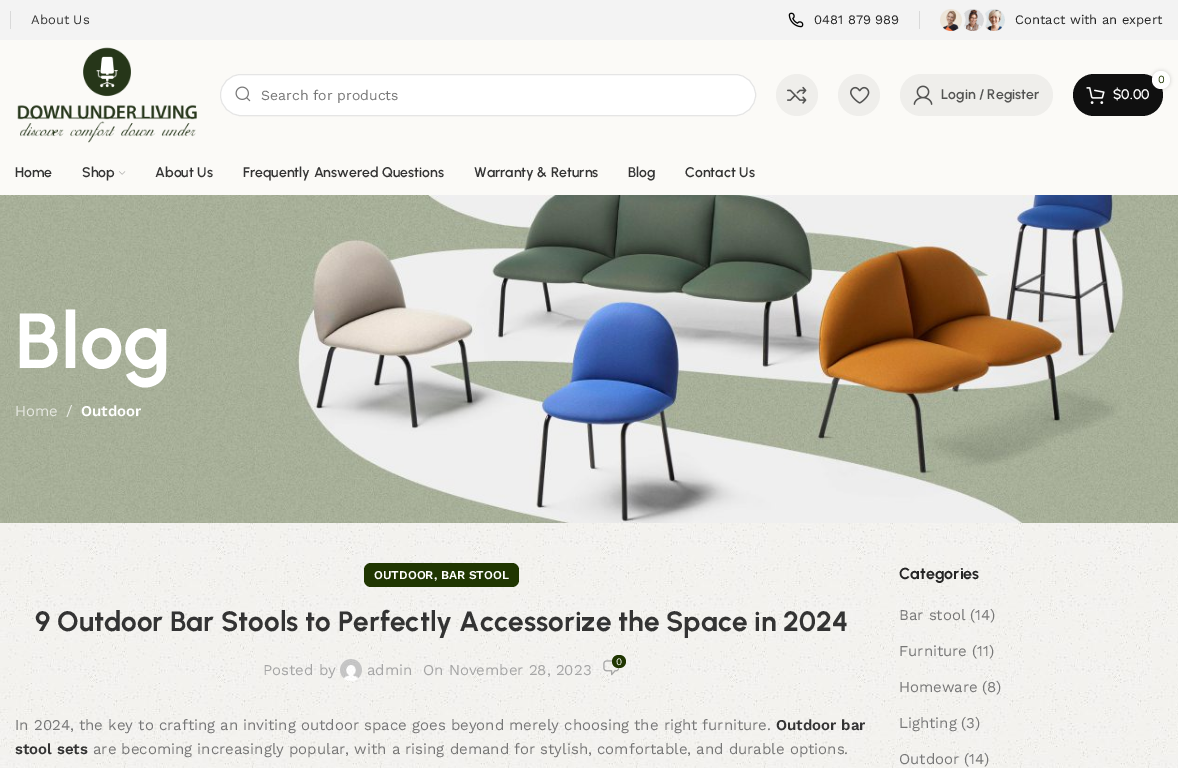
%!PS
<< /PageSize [1178 768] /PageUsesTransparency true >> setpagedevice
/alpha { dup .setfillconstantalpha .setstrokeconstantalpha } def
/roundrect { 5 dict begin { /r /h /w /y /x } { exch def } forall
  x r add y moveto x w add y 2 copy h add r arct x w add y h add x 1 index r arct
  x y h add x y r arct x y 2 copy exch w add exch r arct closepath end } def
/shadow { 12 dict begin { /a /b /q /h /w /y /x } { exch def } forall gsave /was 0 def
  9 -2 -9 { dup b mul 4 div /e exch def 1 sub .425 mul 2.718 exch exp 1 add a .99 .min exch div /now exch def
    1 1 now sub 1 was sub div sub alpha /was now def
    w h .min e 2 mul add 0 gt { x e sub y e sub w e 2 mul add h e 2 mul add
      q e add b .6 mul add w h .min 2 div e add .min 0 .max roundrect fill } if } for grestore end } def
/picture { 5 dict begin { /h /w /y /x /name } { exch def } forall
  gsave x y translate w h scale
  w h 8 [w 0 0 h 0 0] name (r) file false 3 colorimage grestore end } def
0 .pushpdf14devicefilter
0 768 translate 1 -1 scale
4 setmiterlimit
1 setgray
0 0 1178 768 rectfill
0.953 setgray
0 0 1178 40 rectfill
0.851 setgray
10 11 1 18 rectfill
/WorkSans-Regular [13 0 0 -13 0 0] selectfont
0.2 setgray
31 24 moveto (About Us) show
(img1.rgb) 788 12 16 16 picture
0.141 setgray
814 24 moveto (0481 879 989) show
0.851 setgray
919 11 1 18 rectfill
(img2.rgb) 940 9 65 22 picture
0.141 setgray
1015 24 moveto (Contact with an expert) show
0.984 0.98 0.969 setrgbcolor
0 40 1178 155 rectfill
(img3.rgb) 17 47 180 96 picture
1 setgray
220 74 536 42 21 roundrect fill
0.1 alpha
0 setgray
220.5 74.5 535 41 20.5 roundrect stroke
1 alpha
(img4.rgb) 235 86 16 16 picture
/WorkSans-Regular [14 0 0 -14 0 0] selectfont
0.467 setgray
261 100 moveto (Search for products) show
0.937 0.933 0.922 setrgbcolor
newpath 797 95 21 0 360 arc closepath fill
(img5.rgb) 787 86 20 18 picture
newpath 859 95 21 0 360 arc closepath fill
(img6.rgb) 850 86 20 18 picture
900 74 153 42 21 roundrect fill
(img7.rgb) 913 85 20 20 picture
/Urbanist-SemiBold [14 0 0 -14 0 0] selectfont
0.325 0.325 0.322 setrgbcolor
941 99 moveto (Login / Register) show
0.063 setgray
1073 74 90 42 21 roundrect fill
0 setgray
1152 71 18 18 9 2 0.17 shadow
1 setgray
newpath 1161 80 9 0 360 arc closepath fill
/WorkSans-Regular [11 0 0 -11 0 0] selectfont
0.125 0.212 0.004 setrgbcolor
1158 83 moveto (0) show
(img8.rgb) 1086 87 19 17 picture
/Urbanist-SemiBold [14 0 0 -14 0 0] selectfont
1 setgray
1113 99 moveto ($0.00) show
0.2 setgray
15 177 moveto (Home) show
82 177 moveto (Shop) show
(img9.rgb) 119 171 7 4 picture
155 177 moveto (About Us) show
243 177 moveto (Frequently Answered Questions) show
474 177 moveto (Warranty & Returns) show
628 177 moveto (Blog) show
685 177 moveto (Contact Us) show
(img10.rgb) 0 523 1178 245 picture
(img11.rgb) 0 195 1178 328 picture
/Urbanist-Bold [78 0 0 -78 0 0] selectfont
1 setgray
15 368 moveto (Blog) show
/WorkSans-Regular [15 0 0 -15 0 0] selectfont
0.898 0.906 0.878 setrgbcolor
15 416 moveto (Home) show
0.933 0.937 0.922 setrgbcolor
66 416 moveto (/) show
/WorkSans-SemiBold [15 0 0 -15 0 0] selectfont
1 setgray
81 416 moveto (Outdoor) show
0.125 0.212 0.004 setrgbcolor
364 563 155 24 7 roundrect fill
/WorkSans-SemiBold [12 0 0 -12 0 0] selectfont
1 setgray
374 579 moveto (OUTDOOR, BAR STOOL) show
/Urbanist-Bold [28 0 0 -28 0 0] selectfont
0.2 setgray
35 631 moveto (9 Outdoor Bar Stools to Perfectly Accessorize the Space in 2024) show
(img12.rgb) 603 660 17 16 picture
0.125 0.212 0.004 setrgbcolor
612 655 14 13 6.5 roundrect fill
/WorkSans-Regular [10 0 0 -10 0 0] selectfont
1 setgray
616 665 moveto (0) show
/WorkSans-Regular [15 0 0 -15 0 0] selectfont
0.647 setgray
263 675 moveto (Posted by) show
(img13.rgb) 340 659 22 22 picture
367 675 moveto (admin) show
423 675 moveto (On November 28, 2023) show
0.467 setgray
15 730 moveto (In 2024, the key to crafting an inviting outdoor space goes beyond merely choosing the right furniture.) show
/WorkSans-SemiBold [15 0 0 -15 0 0] selectfont
0.2 setgray
776 730 moveto (Outdoor bar) show
15 754 moveto (stool sets) show
/WorkSans-Regular [15 0 0 -15 0 0] selectfont
0.467 setgray
93 754 moveto (are becoming increasingly popular, with a rising demand for stylish, comfortable, and durable options.) show
/Urbanist-Bold [16 0 0 -16 0 0] selectfont
0.141 setgray
899 579 moveto (Categories) show
/WorkSans-Regular [15 0 0 -15 0 0] selectfont
0.467 setgray
899 620 moveto (Bar stool) show
970 620 moveto (\(14\)) show
899 656 moveto (Furniture) show
972 656 moveto (\(11\)) show
899 692 moveto (Homeware) show
982 692 moveto (\(8\)) show
899 728 moveto (Lighting) show
961 728 moveto (\(3\)) show
899 764 moveto (Outdoor) show
964 764 moveto (\(14\)) show
.poppdf14devicefilter showpage
